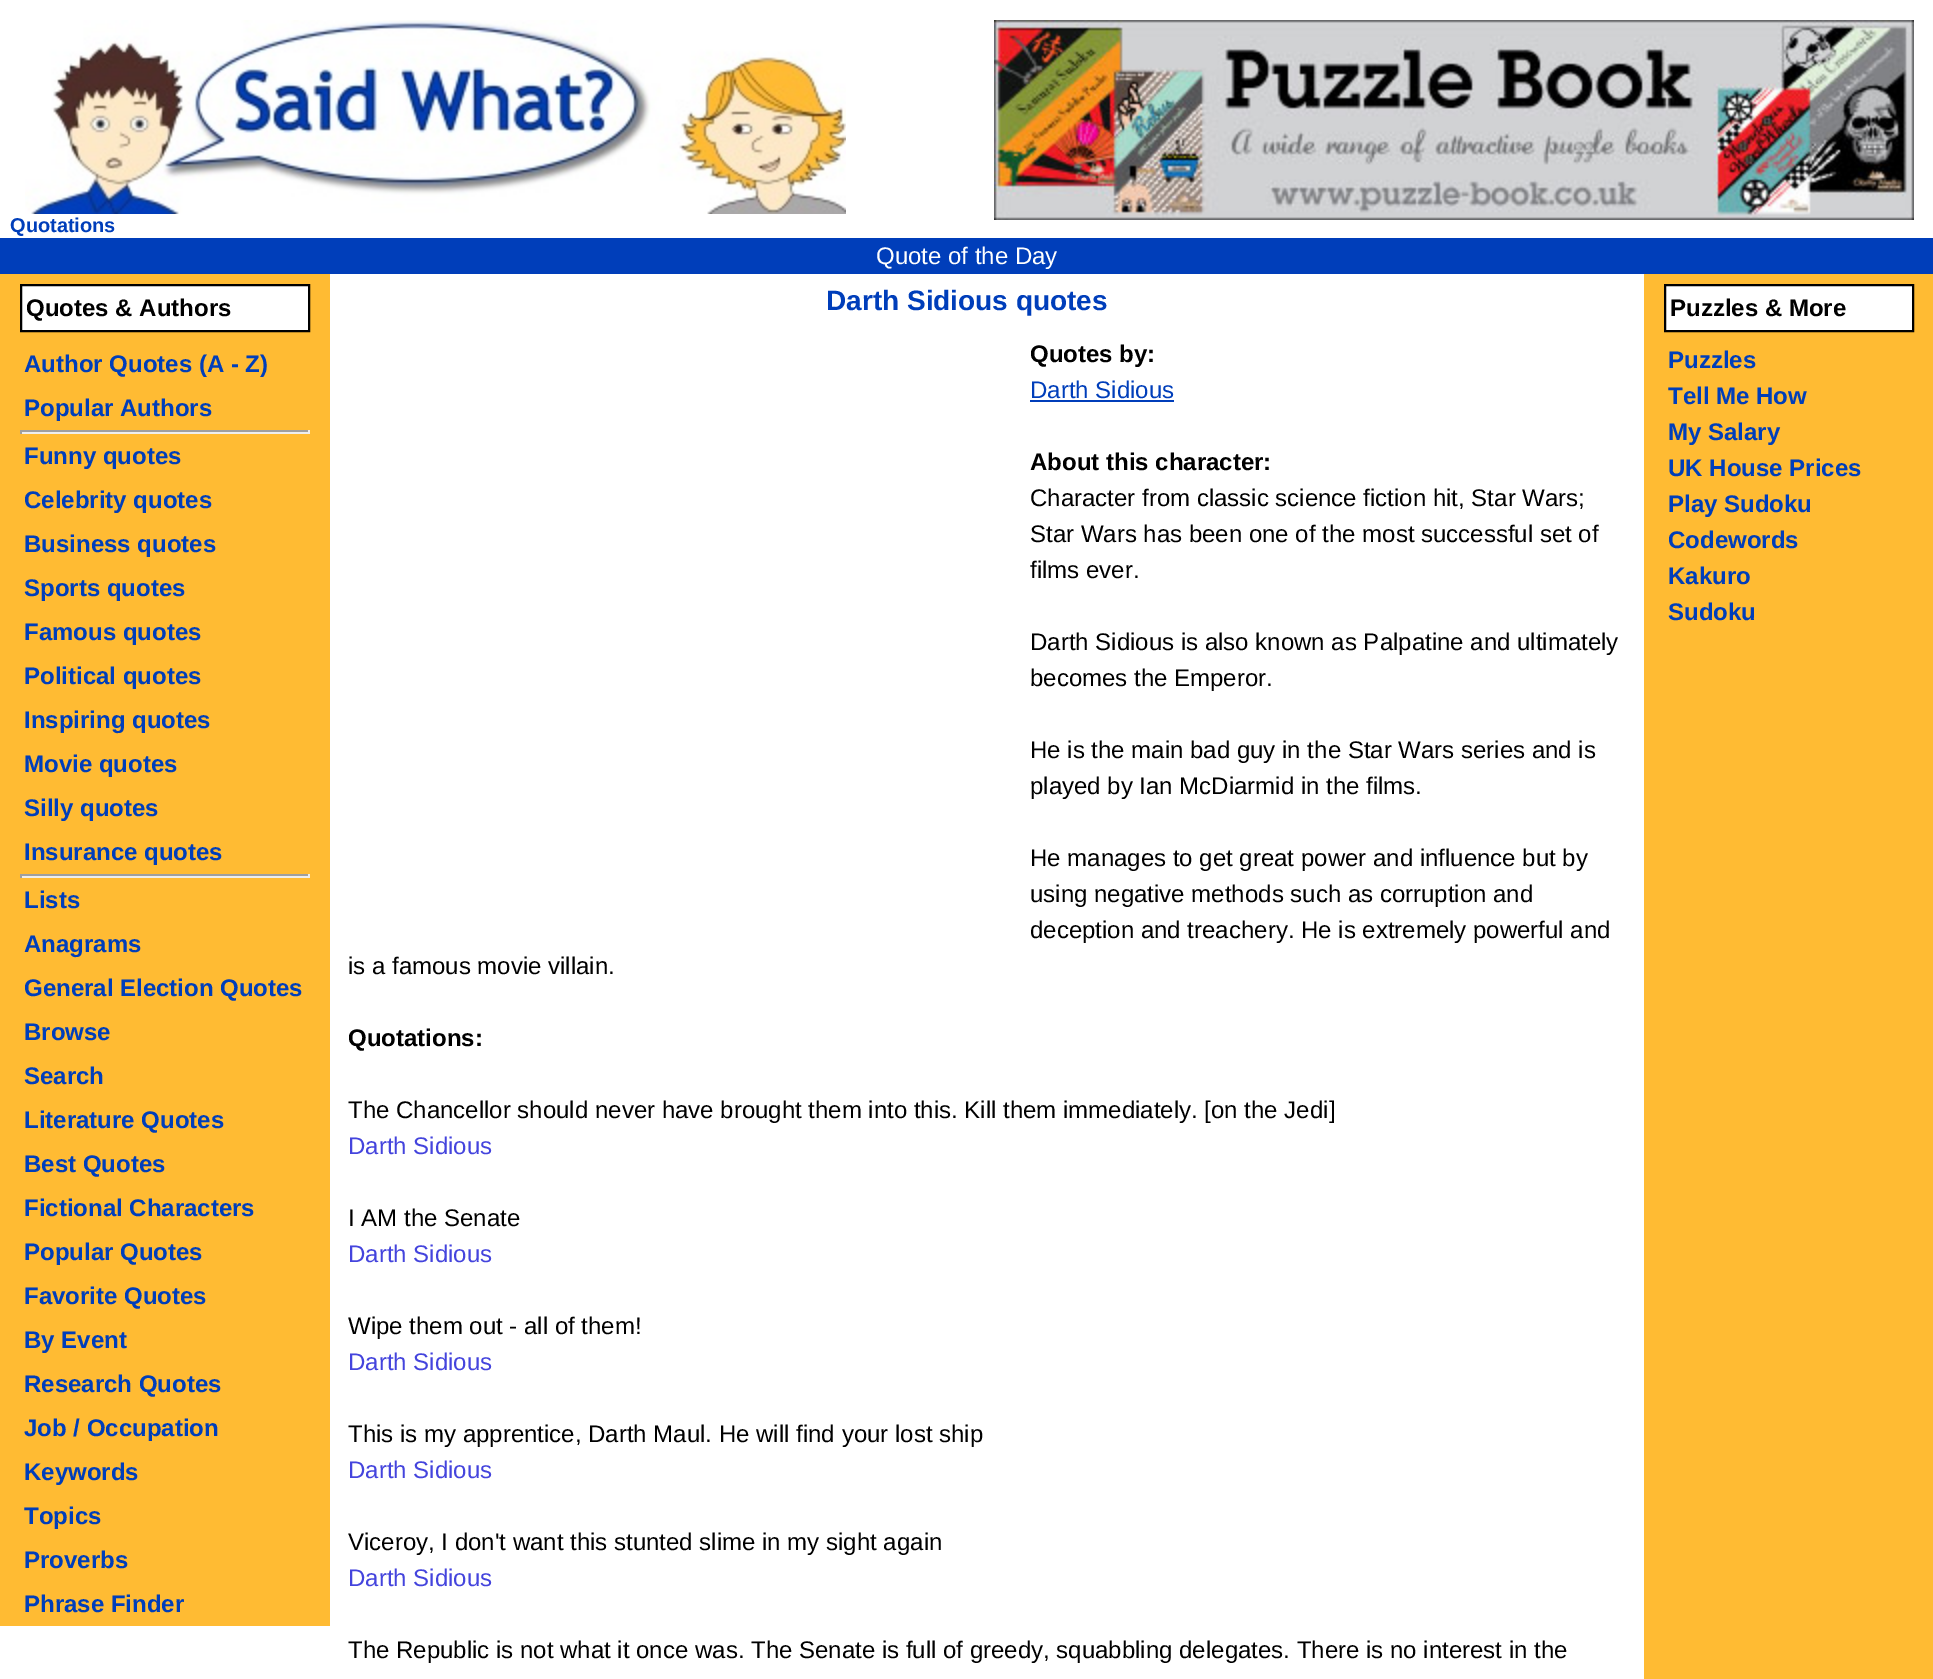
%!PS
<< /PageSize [1933 1679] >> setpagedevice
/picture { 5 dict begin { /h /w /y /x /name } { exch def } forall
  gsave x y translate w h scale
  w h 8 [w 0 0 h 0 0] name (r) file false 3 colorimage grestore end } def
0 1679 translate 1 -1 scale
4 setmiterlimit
1 setgray
0 0 1933 1679 rectfill
(img1.rgb) 994 20 920 200 picture
(img2.rgb) 25 20 821 194 picture
/LiberationSans-Bold [20 0 0 -20 0 0] selectfont
0 0.243 0.729 setrgbcolor
10 232 moveto (Quotations) show
0 238 1933 36 rectfill
/LiberationSans-Regular [24 0 0 -24 0 0] selectfont
1 setgray
876 264 moveto (Quote of the Day) show
1 0.733 0.2 setrgbcolor
0 274 330 1352 rectfill
1 setgray
newpath 21 285 moveto 309 285 lineto 309 331 lineto 21 331 lineto closepath gsave fill grestore
0 setgray
2 setlinewidth
stroke
/LiberationSans-Bold [24 0 0 -24 0 0] selectfont
26 316 moveto (Quotes & Authors) show
0 0.243 0.729 setrgbcolor
24 372 moveto (Author Quotes \(A - Z\)) show
24 416 moveto (Popular Authors) show
0.624 setgray
20 430 290 2 rectfill
0.933 setgray
308 430 2 4 rectfill
20 432 290 2 rectfill
0.624 setgray
20 430 2 4 rectfill
0 0.243 0.729 setrgbcolor
24 464 moveto (Funny quotes) show
24 508 moveto (Celebrity quotes) show
24 552 moveto (Business quotes) show
24 596 moveto (Sports quotes) show
24 640 moveto (Famous quotes) show
24 684 moveto (Political quotes) show
24 728 moveto (Inspiring quotes) show
24 772 moveto (Movie quotes) show
24 816 moveto (Silly quotes) show
24 860 moveto (Insurance quotes) show
0.624 setgray
20 874 290 2 rectfill
0.933 setgray
308 874 2 4 rectfill
20 876 290 2 rectfill
0.624 setgray
20 874 2 4 rectfill
0 0.243 0.729 setrgbcolor
24 908 moveto (Lists) show
24 952 moveto (Anagrams) show
24 996 moveto (General Election Quotes) show
24 1040 moveto (Browse) show
24 1084 moveto (Search) show
24 1128 moveto (Literature Quotes) show
24 1172 moveto (Best Quotes) show
24 1216 moveto (Fictional Characters) show
24 1260 moveto (Popular Quotes) show
24 1304 moveto (Favorite Quotes) show
24 1348 moveto (By Event) show
24 1392 moveto (Research Quotes) show
24 1436 moveto (Job / Occupation) show
24 1480 moveto (Keywords) show
24 1524 moveto (Topics) show
24 1568 moveto (Proverbs) show
24 1612 moveto (Phrase Finder) show
/LiberationSans-Bold [28 0 0 -28 0 0] selectfont
826 310 moveto (Darth Sidious quotes) show
1 0.733 0.2 setrgbcolor
1644 274 289 1405 rectfill
1 setgray
newpath 1665 285 moveto 1913 285 lineto 1913 331 lineto 1665 331 lineto closepath gsave fill grestore
0 setgray
stroke
/LiberationSans-Bold [24 0 0 -24 0 0] selectfont
1670 316 moveto (Puzzles & More) show
0 0.243 0.729 setrgbcolor
1668 368 moveto (Puzzles) show
1668 404 moveto (Tell Me How) show
1668 440 moveto (My Salary) show
1668 476 moveto (UK House Prices) show
1668 512 moveto (Play Sudoku) show
1668 548 moveto (Codewords) show
1668 584 moveto (Kakuro) show
1668 620 moveto (Sudoku) show
0 setgray
1030 362 moveto (Quotes by:) show
/LiberationSans-Regular [24 0 0 -24 0 0] selectfont
0 0.243 0.729 setrgbcolor
1030 398 moveto (Darth Sidious) show
1030 400 144 2 rectfill
/LiberationSans-Bold [24 0 0 -24 0 0] selectfont
0 setgray
1030 470 moveto (About this character:) show
/LiberationSans-Regular [24 0 0 -24 0 0] selectfont
1030 506 moveto (Character from classic science fiction hit, Star Wars;) show
1030 542 moveto (Star Wars has been one of the most successful set of) show
1030 578 moveto (films ever.) show
1030 650 moveto (Darth Sidious is also known as Palpatine and ultimately) show
1030 686 moveto (becomes the Emperor.) show
1030 758 moveto (He is the main bad guy in the Star Wars series and is) show
1030 794 moveto (played by Ian McDiarmid in the films.) show
1030 866 moveto (He manages to get great power and influence but by) show
1030 902 moveto (using negative methods such as corruption and) show
1030 938 moveto (deception and treachery. He is extremely powerful and) show
348 974 moveto (is a famous movie villain.) show
/LiberationSans-Bold [24 0 0 -24 0 0] selectfont
348 1046 moveto (Quotations:) show
/LiberationSans-Regular [24 0 0 -24 0 0] selectfont
348 1118 moveto (The Chancellor should never have brought them into this. Kill them immediately. [on the Jedi]) show
0.267 0.267 0.867 setrgbcolor
348 1154 moveto (Darth Sidious) show
0 setgray
348 1226 moveto (I AM the Senate) show
0.267 0.267 0.867 setrgbcolor
348 1262 moveto (Darth Sidious) show
0 setgray
348 1334 moveto (Wipe them out - all of them!) show
0.267 0.267 0.867 setrgbcolor
348 1370 moveto (Darth Sidious) show
0 setgray
348 1442 moveto (This is my apprentice, Darth Maul. He will find your lost ship) show
0.267 0.267 0.867 setrgbcolor
348 1478 moveto (Darth Sidious) show
0 setgray
348 1550 moveto (Viceroy, I don't want this stunted slime in my sight again) show
0.267 0.267 0.867 setrgbcolor
348 1586 moveto (Darth Sidious) show
0 setgray
348 1658 moveto (The Republic is not what it once was. The Senate is full of greedy, squabbling delegates. There is no interest in the) show
showpage
